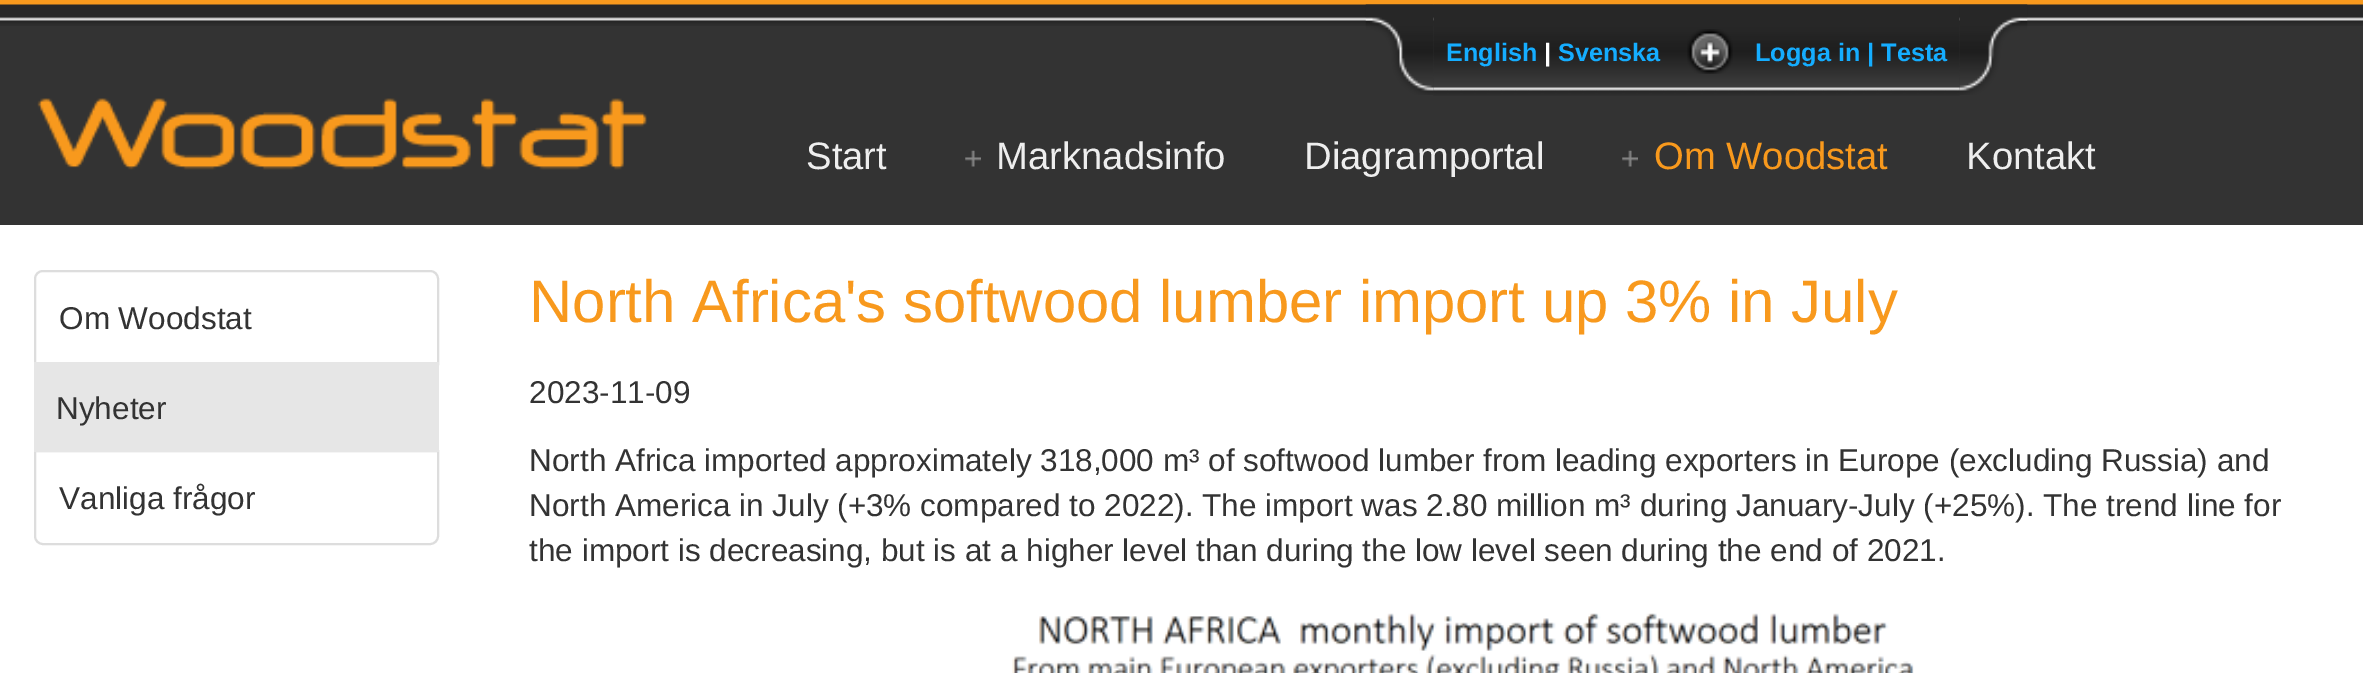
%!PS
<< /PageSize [2363 673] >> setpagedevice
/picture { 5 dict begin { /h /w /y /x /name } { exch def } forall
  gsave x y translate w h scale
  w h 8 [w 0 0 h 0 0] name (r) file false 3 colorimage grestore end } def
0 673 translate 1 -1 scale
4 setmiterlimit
1 setgray
0 0 2363 673 rectfill
0.973 0.6 0.114 setrgbcolor
0 0 2363 5 rectfill
0.2 setgray
0 19 2363 206 rectfill
(img1.rgb) 0 4 2363 22 picture
(img2.rgb) 1365 4 69 91 picture
(img3.rgb) 1433 4 241 92 picture
/LiberationSans-Bold [25.25 0 0 -25.25 0 0] selectfont
0.082 0.678 1 setrgbcolor
1446 61 moveto (English) show
1 setgray
1544 61 moveto (|) show
0.082 0.678 1 setrgbcolor
1558 61 moveto (Svenska) show
(img4.rgb) 1674 4 286 92 picture
(img5.rgb) 1687 29 46 45 picture
1755 61 moveto (Logga in | Testa) show
(img6.rgb) 1959 4 69 91 picture
(img7.rgb) 37 98 610 72 picture
/LiberationSans-Regular [38.25 0 0 -38.25 0 0] selectfont
0.933 setgray
806 169 moveto (Start) show
(img8.rgb) 965 150 16 17 picture
996 169 moveto (Marknadsinfo) show
1304 169 moveto (Diagramportal) show
(img8.rgb) 1622 150 16 17 picture
0.973 0.6 0.114 setrgbcolor
1654 169 moveto (Om Woodstat) show
0.933 setgray
1966 169 moveto (Kontakt) show
0.867 setgray
2 setlinewidth
newpath 43 271 moveto 430 271 lineto 434.5 271 438 274.5 438 279 curveto 438 364 lineto 35 364 lineto 35 279 lineto 35 274.5 38.5 271 43 271 curveto closepath stroke
/LiberationSans-Regular [31.5 0 0 -31.5 0 0] selectfont
0.2 setgray
59 329 moveto (Om Woodstat) show
0.867 setgray
newpath 35 451 moveto 438 451 lineto 438 536 lineto 438 540.5 434.5 544 430 544 curveto 43 544 lineto 38.5 544 35 540.5 35 536 curveto closepath stroke
0.902 setgray
34 362 405 90 rectfill
0.2 setgray
56 419 moveto (Nyheter) show
59 509 moveto (Vanliga frågor) show
/LiberationSans-Regular [59.85 0 0 -59.85 0 0] selectfont
0.973 0.6 0.114 setrgbcolor
529 322 moveto (North Africa's softwood lumber import up 3% in July) show
/LiberationSans-Regular [31.5 0 0 -31.5 0 0] selectfont
0.2 setgray
529 403 moveto (2023-11-09) show
529 471 moveto (North Africa imported approximately 318,000 m³ of softwood lumber from leading exporters in Europe \(excluding Russia\) and) show
529 516 moveto (North America in July \(+3% compared to 2022\). The import was 2.80 million m³ during January-July \(+25%\). The trend line for) show
529 561 moveto (the import is decreasing, but is at a higher level than during the low level seen during the end of 2021.) show
(img9.rgb) 1012 613 902 60 picture
showpage
